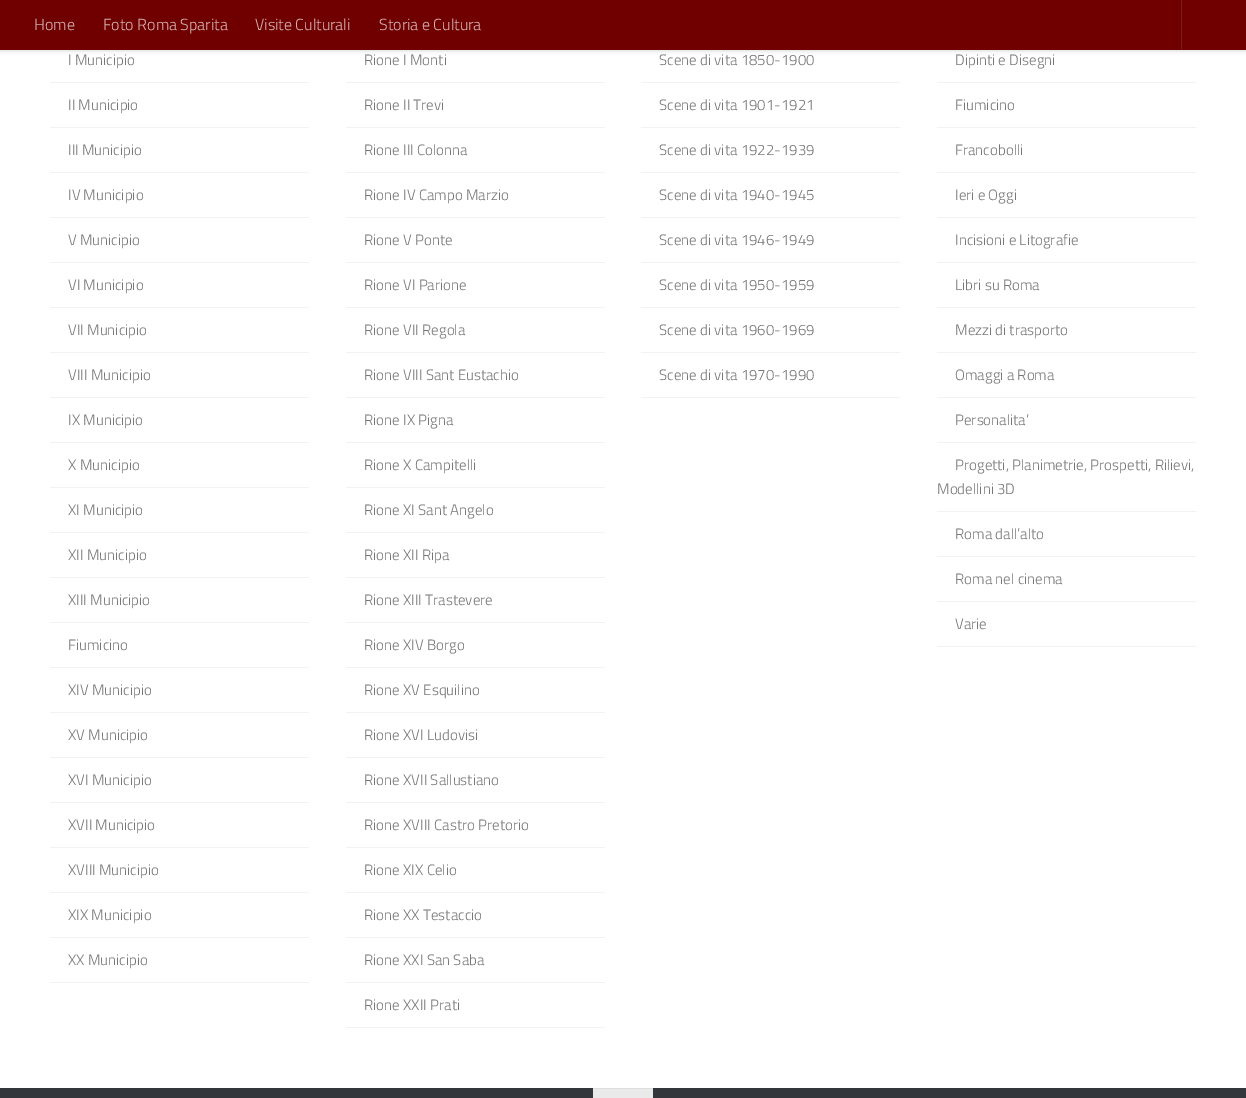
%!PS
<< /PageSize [1246 1098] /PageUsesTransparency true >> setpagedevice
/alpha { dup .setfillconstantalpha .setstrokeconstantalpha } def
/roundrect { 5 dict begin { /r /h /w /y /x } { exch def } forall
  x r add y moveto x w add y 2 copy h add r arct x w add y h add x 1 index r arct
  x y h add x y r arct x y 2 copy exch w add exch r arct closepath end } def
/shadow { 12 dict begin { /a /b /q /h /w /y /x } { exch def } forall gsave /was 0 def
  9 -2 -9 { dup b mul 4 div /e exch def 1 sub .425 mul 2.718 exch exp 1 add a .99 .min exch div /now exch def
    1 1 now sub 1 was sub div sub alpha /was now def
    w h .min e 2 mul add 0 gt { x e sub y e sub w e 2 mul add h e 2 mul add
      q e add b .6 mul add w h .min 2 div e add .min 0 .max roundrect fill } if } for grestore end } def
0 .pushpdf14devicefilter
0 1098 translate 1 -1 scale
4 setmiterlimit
1 setgray
0 0 1246 1098 rectfill
0 setgray
0 0 1246 50 0 2.5 0.2 shadow
0.439 0 0 setrgbcolor
0 0 1246 50 rectfill
/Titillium-Light [16 0 0 -16 0 0] selectfont
0.831 0.702 0.702 setrgbcolor
34 30 moveto (Home) show
103 30 moveto (Foto Roma Sparita) show
255 30 moveto (Visite Culturali) show
379 30 moveto (Storia e Cultura) show
0.494 0.102 0.102 setrgbcolor
1181 0 1 50 rectfill
0.949 setgray
50 82 259 1 rectfill
/Titillium-Light [15 0 0 -15 0 0] selectfont
0.467 setgray
68 65 moveto (I Municipio) show
0.949 setgray
50 127 259 1 rectfill
0.467 setgray
68 110 moveto (II Municipio) show
0.949 setgray
50 172 259 1 rectfill
0.467 setgray
68 155 moveto (III Municipio) show
0.949 setgray
50 217 259 1 rectfill
0.467 setgray
68 200 moveto (IV Municipio) show
0.949 setgray
50 262 259 1 rectfill
0.467 setgray
68 245 moveto (V Municipio) show
0.949 setgray
50 307 259 1 rectfill
0.467 setgray
68 290 moveto (VI Municipio) show
0.949 setgray
50 352 259 1 rectfill
0.467 setgray
68 335 moveto (VII Municipio) show
0.949 setgray
50 397 259 1 rectfill
0.467 setgray
68 380 moveto (VIII Municipio) show
0.949 setgray
50 442 259 1 rectfill
0.467 setgray
68 425 moveto (IX Municipio) show
0.949 setgray
50 487 259 1 rectfill
0.467 setgray
68 470 moveto (X Municipio) show
0.949 setgray
50 532 259 1 rectfill
0.467 setgray
68 515 moveto (XI Municipio) show
0.949 setgray
50 577 259 1 rectfill
0.467 setgray
68 560 moveto (XII Municipio) show
0.949 setgray
50 622 259 1 rectfill
0.467 setgray
68 605 moveto (XIII Municipio) show
0.949 setgray
50 667 259 1 rectfill
0.467 setgray
68 650 moveto (Fiumicino) show
0.949 setgray
50 712 259 1 rectfill
0.467 setgray
68 695 moveto (XIV Municipio) show
0.949 setgray
50 757 259 1 rectfill
0.467 setgray
68 740 moveto (XV Municipio) show
0.949 setgray
50 802 259 1 rectfill
0.467 setgray
68 785 moveto (XVI Municipio) show
0.949 setgray
50 847 259 1 rectfill
0.467 setgray
68 830 moveto (XVII Municipio) show
0.949 setgray
50 892 259 1 rectfill
0.467 setgray
68 875 moveto (XVIII Municipio) show
0.949 setgray
50 937 259 1 rectfill
0.467 setgray
68 920 moveto (XIX Municipio) show
0.949 setgray
50 982 259 1 rectfill
0.467 setgray
68 965 moveto (XX Municipio) show
0.949 setgray
346 82 259 1 rectfill
0.467 setgray
364 65 moveto (Rione I Monti) show
0.949 setgray
346 127 259 1 rectfill
0.467 setgray
364 110 moveto (Rione II Trevi) show
0.949 setgray
346 172 259 1 rectfill
0.467 setgray
364 155 moveto (Rione III Colonna) show
0.949 setgray
346 217 259 1 rectfill
0.467 setgray
364 200 moveto (Rione IV Campo Marzio) show
0.949 setgray
346 262 259 1 rectfill
0.467 setgray
364 245 moveto (Rione V Ponte) show
0.949 setgray
346 307 259 1 rectfill
0.467 setgray
364 290 moveto (Rione VI Parione) show
0.949 setgray
346 352 259 1 rectfill
0.467 setgray
364 335 moveto (Rione VII Regola) show
0.949 setgray
346 397 259 1 rectfill
0.467 setgray
364 380 moveto (Rione VIII Sant Eustachio) show
0.949 setgray
346 442 259 1 rectfill
0.467 setgray
364 425 moveto (Rione IX Pigna) show
0.949 setgray
346 487 259 1 rectfill
0.467 setgray
364 470 moveto (Rione X Campitelli) show
0.949 setgray
346 532 259 1 rectfill
0.467 setgray
364 515 moveto (Rione XI Sant Angelo) show
0.949 setgray
346 577 259 1 rectfill
0.467 setgray
364 560 moveto (Rione XII Ripa) show
0.949 setgray
346 622 259 1 rectfill
0.467 setgray
364 605 moveto (Rione XIII Trastevere) show
0.949 setgray
346 667 259 1 rectfill
0.467 setgray
364 650 moveto (Rione XIV Borgo) show
0.949 setgray
346 712 259 1 rectfill
0.467 setgray
364 695 moveto (Rione XV Esquilino) show
0.949 setgray
346 757 259 1 rectfill
0.467 setgray
364 740 moveto (Rione XVI Ludovisi) show
0.949 setgray
346 802 259 1 rectfill
0.467 setgray
364 785 moveto (Rione XVII Sallustiano) show
0.949 setgray
346 847 259 1 rectfill
0.467 setgray
364 830 moveto (Rione XVIII Castro Pretorio) show
0.949 setgray
346 892 259 1 rectfill
0.467 setgray
364 875 moveto (Rione XIX Celio) show
0.949 setgray
346 937 259 1 rectfill
0.467 setgray
364 920 moveto (Rione XX Testaccio) show
0.949 setgray
346 982 259 1 rectfill
0.467 setgray
364 965 moveto (Rione XXI San Saba) show
0.949 setgray
346 1027 259 1 rectfill
0.467 setgray
364 1010 moveto (Rione XXII Prati) show
0.949 setgray
641 82 259 1 rectfill
0.467 setgray
659 65 moveto (Scene di vita 1850-1900) show
0.949 setgray
641 127 259 1 rectfill
0.467 setgray
659 110 moveto (Scene di vita 1901-1921) show
0.949 setgray
641 172 259 1 rectfill
0.467 setgray
659 155 moveto (Scene di vita 1922-1939) show
0.949 setgray
641 217 259 1 rectfill
0.467 setgray
659 200 moveto (Scene di vita 1940-1945) show
0.949 setgray
641 262 259 1 rectfill
0.467 setgray
659 245 moveto (Scene di vita 1946-1949) show
0.949 setgray
641 307 259 1 rectfill
0.467 setgray
659 290 moveto (Scene di vita 1950-1959) show
0.949 setgray
641 352 259 1 rectfill
0.467 setgray
659 335 moveto (Scene di vita 1960-1969) show
0.949 setgray
641 397 259 1 rectfill
0.467 setgray
659 380 moveto (Scene di vita 1970-1990) show
0.949 setgray
937 82 259 1 rectfill
0.467 setgray
955 65 moveto (Dipinti e Disegni) show
0.949 setgray
937 127 259 1 rectfill
0.467 setgray
955 110 moveto (Fiumicino) show
0.949 setgray
937 172 259 1 rectfill
0.467 setgray
955 155 moveto (Francobolli) show
0.949 setgray
937 217 259 1 rectfill
0.467 setgray
955 200 moveto (Ieri e Oggi) show
0.949 setgray
937 262 259 1 rectfill
0.467 setgray
955 245 moveto (Incisioni e Litografie) show
0.949 setgray
937 307 259 1 rectfill
0.467 setgray
955 290 moveto (Libri su Roma) show
0.949 setgray
937 352 259 1 rectfill
0.467 setgray
955 335 moveto (Mezzi di trasporto) show
0.949 setgray
937 397 259 1 rectfill
0.467 setgray
955 380 moveto (Omaggi a Roma) show
0.949 setgray
937 442 259 1 rectfill
0.467 setgray
955 425 moveto (Personalita’) show
0.949 setgray
937 511 259 1 rectfill
0.467 setgray
955 470 moveto (Progetti, Planimetrie, Prospetti, Rilievi,) show
937 494 moveto (Modellini 3D) show
0.949 setgray
937 556 259 1 rectfill
0.467 setgray
955 539 moveto (Roma dall’alto) show
0.949 setgray
937 601 259 1 rectfill
0.467 setgray
955 584 moveto (Roma nel cinema) show
0.949 setgray
937 646 259 1 rectfill
0.467 setgray
955 629 moveto (Varie) show
0.2 0.212 0.231 setrgbcolor
0 1088 1246 10 rectfill
0.918 setgray
593 1089 60 9 rectfill
0.871 setgray
593 1088 60 1 rectfill
.poppdf14devicefilter showpage
